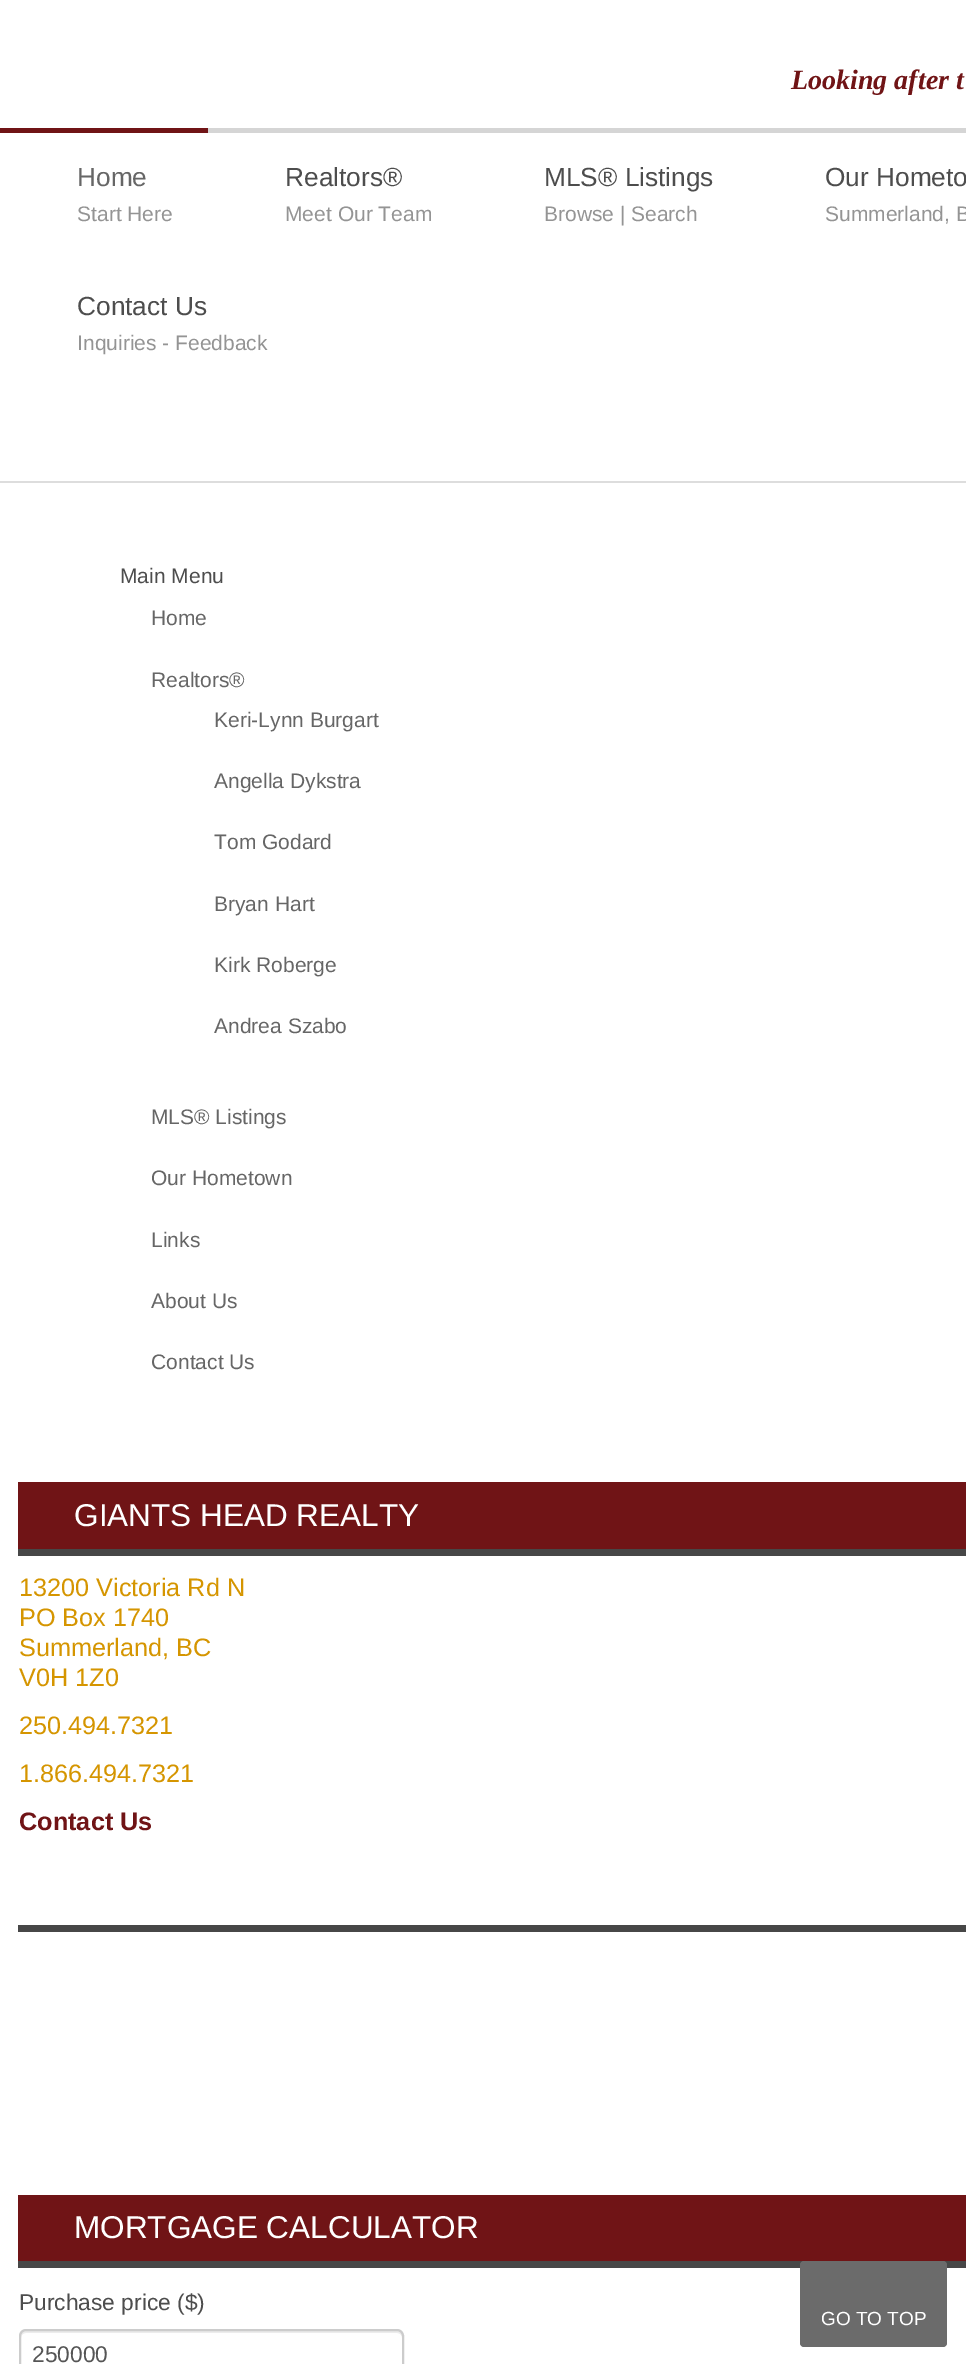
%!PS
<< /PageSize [966 2364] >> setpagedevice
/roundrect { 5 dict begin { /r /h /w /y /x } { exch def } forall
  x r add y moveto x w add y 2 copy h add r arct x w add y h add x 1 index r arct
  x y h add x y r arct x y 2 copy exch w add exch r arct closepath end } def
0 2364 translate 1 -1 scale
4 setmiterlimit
1 setgray
0 0 966 2364 rectfill
/LiberationSerif-BoldItalic [28 0 0 -28 0 0] selectfont
0.439 0.078 0.086 setrgbcolor
791 89 moveto (Looking after t) show
0.835 setgray
208 128 758 5 rectfill
0.867 setgray
0 481 966 2 rectfill
0.439 0.078 0.086 setrgbcolor
0 128 208 5 rectfill
/LiberationSans-Regular [26.25 0 0 -26.25 0 0] selectfont
0.4 setgray
77 186 moveto (Home) show
/LiberationSans-Regular [21 0 0 -21 0 0] selectfont
0.58 setgray
77 221 moveto (Start Here) show
/LiberationSans-Regular [26.25 0 0 -26.25 0 0] selectfont
0.302 setgray
285 186 moveto (Realtors®) show
/LiberationSans-Regular [21 0 0 -21 0 0] selectfont
0.58 setgray
285 221 moveto (Meet Our Team) show
/LiberationSans-Regular [26.25 0 0 -26.25 0 0] selectfont
0.302 setgray
544 186 moveto (MLS® Listings) show
/LiberationSans-Regular [21 0 0 -21 0 0] selectfont
0.58 setgray
544 221 moveto (Browse | Search) show
/LiberationSans-Regular [26.25 0 0 -26.25 0 0] selectfont
0.302 setgray
825 186 moveto (Our Hometo) show
/LiberationSans-Regular [21 0 0 -21 0 0] selectfont
0.58 setgray
825 221 moveto (Summerland, B) show
/LiberationSans-Regular [26.25 0 0 -26.25 0 0] selectfont
0.302 setgray
77 315 moveto (Contact Us) show
/LiberationSans-Regular [21 0 0 -21 0 0] selectfont
0.58 setgray
77 350 moveto (Inquiries - Feedback) show
0.302 setgray
120 583 moveto (Main Menu) show
0.4 setgray
151 625 moveto (Home) show
151 687 moveto (Realtors®) show
214 727 moveto (Keri-Lynn Burgart) show
214 788 moveto (Angella Dykstra) show
214 849 moveto (Tom Godard) show
214 911 moveto (Bryan Hart) show
214 972 moveto (Kirk Roberge) show
214 1033 moveto (Andrea Szabo) show
151 1124 moveto (MLS® Listings) show
151 1185 moveto (Our Hometown) show
151 1247 moveto (Links) show
151 1308 moveto (About Us) show
151 1369 moveto (Contact Us) show
0.439 0.078 0.086 setrgbcolor
18 1482 948 67 rectfill
/LiberationSans-Regular [31.5 0 0 -31.5 0 0] selectfont
1 setgray
74 1526 moveto (GIANTS HEAD REALTY) show
0.278 setgray
18 1549 948 7 rectfill
/LiberationSans-Regular [25.25 0 0 -25.25 0 0] selectfont
0.835 0.584 0 setrgbcolor
19 1596 moveto (13200 Victoria Rd N) show
19 1626 moveto (PO Box 1740) show
19 1656 moveto (Summerland, BC) show
19 1686 moveto (V0H 1Z0) show
19 1734 moveto (250.494.7321) show
19 1782 moveto (1.866.494.7321) show
/LiberationSans-Bold [25.25 0 0 -25.25 0 0] selectfont
0.439 0.078 0.086 setrgbcolor
19 1830 moveto (Contact Us) show
0.278 setgray
18 1925 948 7 rectfill
0.439 0.078 0.086 setrgbcolor
18 2195 948 66 rectfill
/LiberationSans-Regular [31.5 0 0 -31.5 0 0] selectfont
1 setgray
74 2238 moveto (MORTGAGE CALCULATOR) show
0.278 setgray
18 2261 948 7 rectfill
/LiberationSans-Regular [22.75 0 0 -22.75 0 0] selectfont
0.302 setgray
19 2310 moveto (Purchase price \($\)) show
0.925 setgray
newpath 26 2333 moveto 397 2333 lineto 400 2333 402 2335 402 2338 curveto 402 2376 lineto 402 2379 lineto 402 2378 403 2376 403 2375 curveto 403 2336 lineto 403 2333 401 2331 398 2331 curveto 26 2331 lineto 23 2331 21 2333 21 2336 curveto 21 2338 lineto 21 2335 23 2333 26 2333 curveto closepath fill
0.8 setgray
2 setlinewidth
20 2330 383 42 6 roundrect stroke
0.333 setgray
32 2362 moveto (250000) show
0.42 setgray
800 2261 147 86 4 roundrect fill
/LiberationSans-Regular [19 0 0 -19 0 0] selectfont
1 setgray
821 2325 moveto (GO TO TOP) show
showpage
